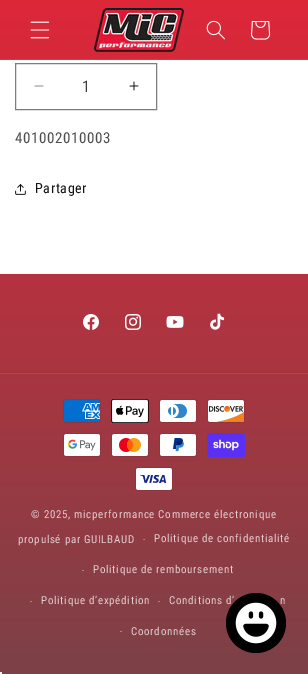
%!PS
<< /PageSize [308 674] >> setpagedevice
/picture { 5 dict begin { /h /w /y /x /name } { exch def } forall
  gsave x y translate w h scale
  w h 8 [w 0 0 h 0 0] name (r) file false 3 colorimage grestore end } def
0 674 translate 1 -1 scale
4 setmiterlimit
1 setgray
0 0 308 674 rectfill
gsave newpath 0 0 moveto 308 0 lineto 308 59 lineto 0 59 lineto closepath clip newpath
<< /ShadingType 2 /ColorSpace /DeviceRGB /Coords [154 674 154 0] /Extend [true true] /Function << /FunctionType 2 /Domain [0 1] /C0 [0.486 0.255 0.278] /C1 [0.867 0.153 0.224] /N 1 >> >> shfill grestore
0.843 0.227 0.29 setrgbcolor
0 59 308 1 rectfill
(img1.rgb) 30 21 20 18 picture
(img2.rgb) 94 8 90 44 picture
(img3.rgb) 206 20 19 20 picture
(img4.rgb) 251 21 20 19 picture
(img5.rgb) 34 85 10 2 picture
(img6.rgb) 129 81 10 10 picture
0.49 setgray
15.5 63.5 141 46 rectstroke
/RobotoCondensed-Regular [16 0 0 -16 0 0] selectfont
0.212 setgray
82 92 moveto (1) show
/RobotoCondensed-Regular [15 0 0 -15 0 0] selectfont
0.302 setgray
15 143 moveto 0.6 0 (401002010003) ashow
(img7.rgb) 15 184 11 11 picture
/RobotoCondensed-Regular [14 0 0 -14 0 0] selectfont
0.071 setgray
35 193 moveto 0.6 0 (Partager) ashow
gsave newpath 0 274 moveto 308 274 lineto 308 674 lineto 0 674 lineto closepath clip newpath
<< /ShadingType 2 /ColorSpace /DeviceRGB /Coords [154 674 154 0] /Extend [true true] /Function << /FunctionType 2 /Domain [0 1] /C0 [0.486 0.255 0.278] /C1 [0.867 0.153 0.224] /N 1 >> >> shfill grestore
(img8.rgb) 83 314 16 16 picture
(img9.rgb) 125 314 16 16 picture
(img10.rgb) 166 316 18 12 picture
(img11.rgb) 210 313 15 17 picture
0.682 0.271 0.314 setrgbcolor
0 373 308 1 rectfill
(img12.rgb) 63 399 38 24 picture
(img13.rgb) 111 399 38 24 picture
(img14.rgb) 159 399 38 24 picture
(img15.rgb) 207 399 38 24 picture
(img16.rgb) 63 433 38 24 picture
(img17.rgb) 111 433 38 24 picture
(img18.rgb) 159 433 38 24 picture
(img19.rgb) 207 433 38 24 picture
(img20.rgb) 135 467 38 24 picture
/RobotoCondensed-Regular [11 0 0 -11 0 0] selectfont
0.894 0.808 0.816 setrgbcolor
31 518 moveto 0.7 0 (© 2025, micperformance Commerce électronique) ashow
/RobotoCondensed-Regular [10 0 0 -10 0 0] selectfont
143 543 moveto 0.7 0 (·) ashow
/RobotoCondensed-Regular [11 0 0 -11 0 0] selectfont
154 542 moveto 0.7 0 (Politique de confidentialité) ashow
/RobotoCondensed-Regular [10 0 0 -10 0 0] selectfont
82 574 moveto 0.7 0 (·) ashow
/RobotoCondensed-Regular [11 0 0 -11 0 0] selectfont
93 573 moveto 0.7 0 (Politique de remboursement) ashow
/RobotoCondensed-Regular [10 0 0 -10 0 0] selectfont
30 605 moveto 0.7 0 (·) ashow
/RobotoCondensed-Regular [11 0 0 -11 0 0] selectfont
41 604 moveto 0.7 0 (Politique d’expédition) ashow
/RobotoCondensed-Regular [10 0 0 -10 0 0] selectfont
158 605 moveto 0.7 0 (·) ashow
/RobotoCondensed-Regular [11 0 0 -11 0 0] selectfont
169 604 moveto 0.7 0 (Conditions d’) ashow
280 604 moveto 0.7 0 (n) ashow
/RobotoCondensed-Regular [10 0 0 -10 0 0] selectfont
120 635 moveto 0.7 0 (·) ashow
/RobotoCondensed-Regular [11 0 0 -11 0 0] selectfont
131 635 moveto 0.7 0 (Coordonnées) ashow
18 543 moveto 0.7 0 (propulsé par GUILBAUD) ashow
0 setgray
newpath 256 623 30 0 360 arc closepath fill
(img21.rgb) 235 602 42 42 picture
0.961 setgray
0 672 2 2 rectfill
showpage
